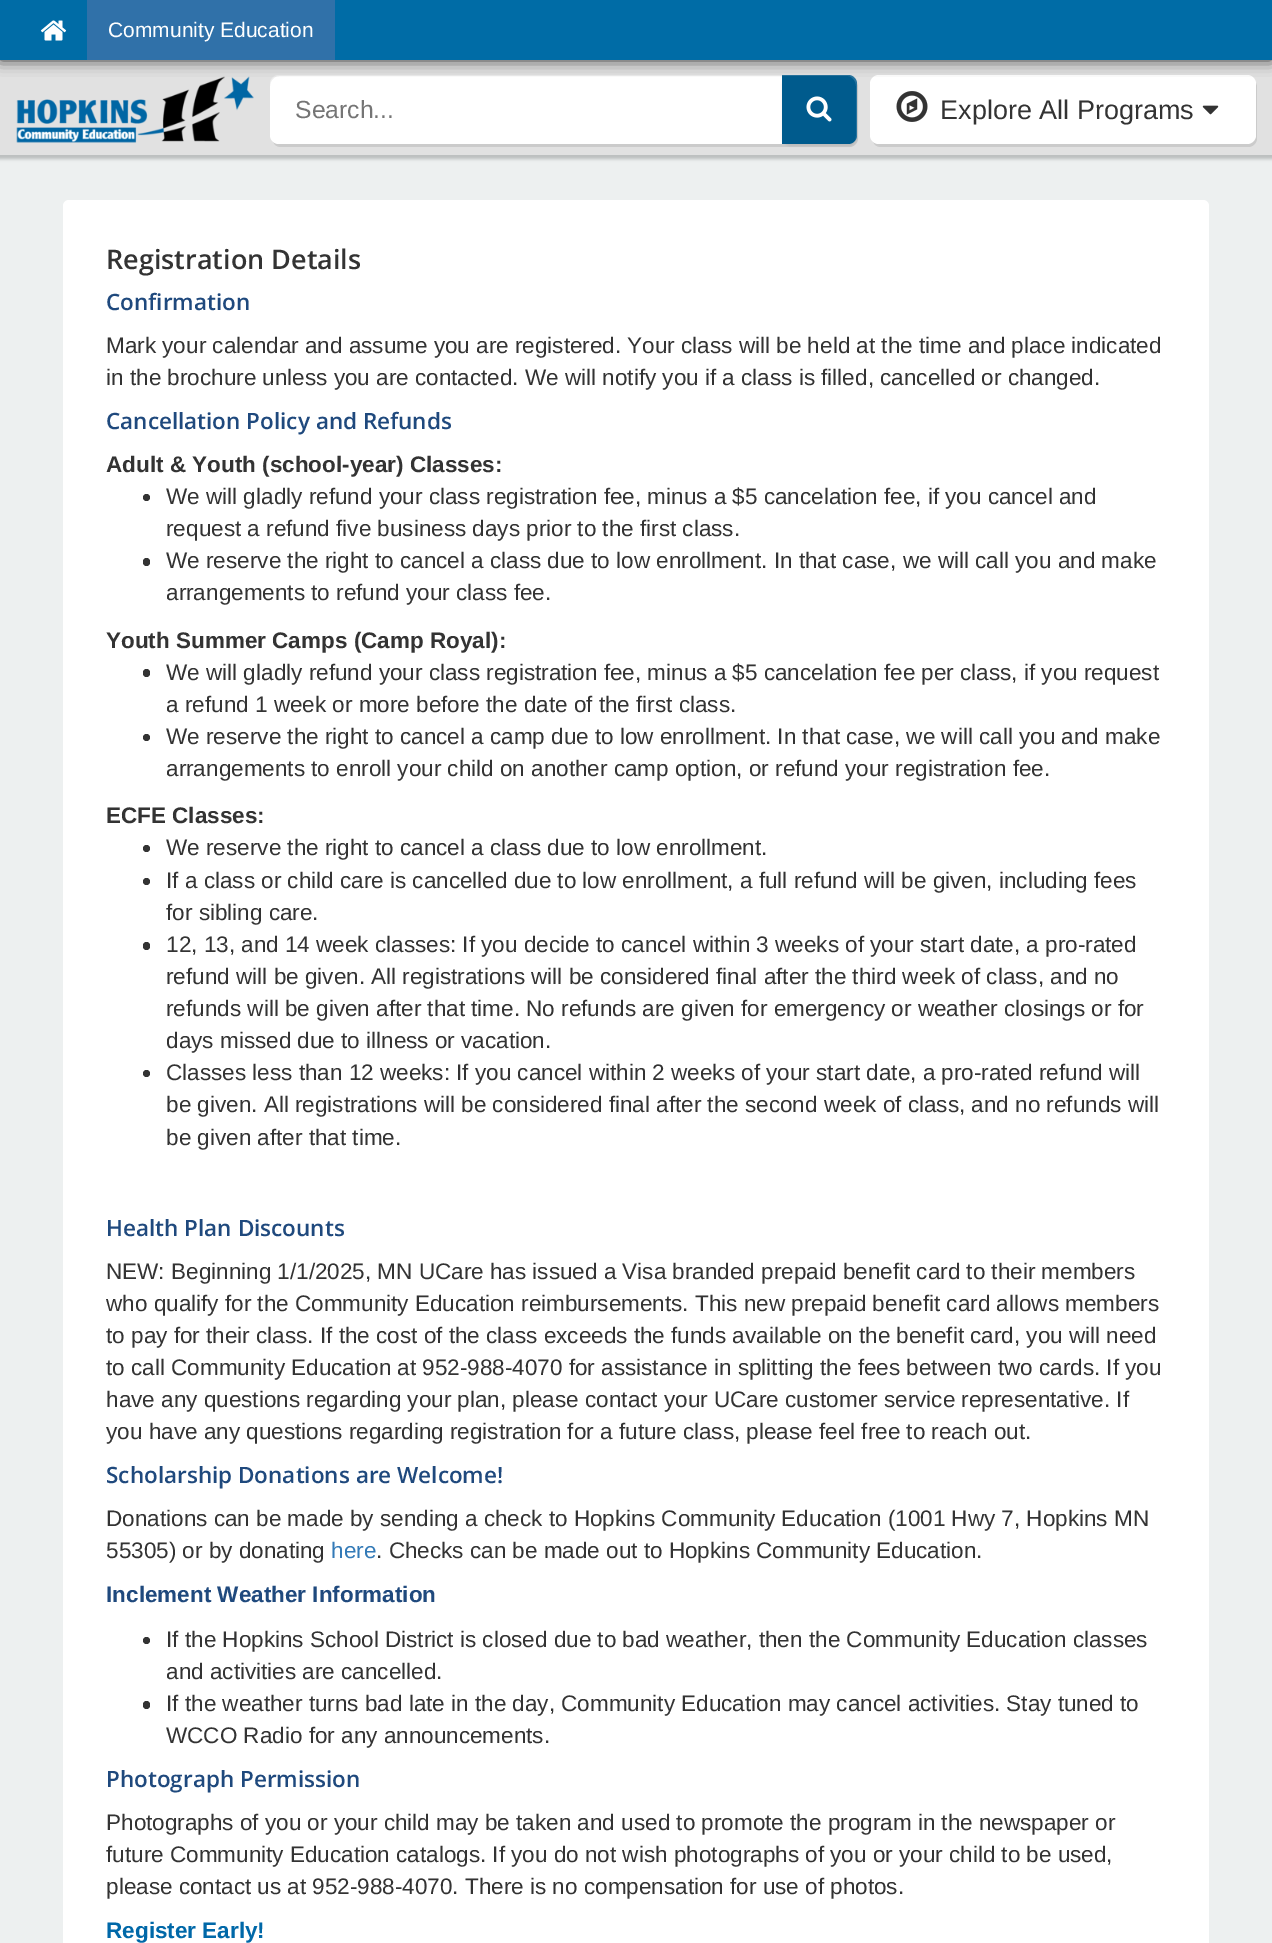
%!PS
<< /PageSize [1272 1943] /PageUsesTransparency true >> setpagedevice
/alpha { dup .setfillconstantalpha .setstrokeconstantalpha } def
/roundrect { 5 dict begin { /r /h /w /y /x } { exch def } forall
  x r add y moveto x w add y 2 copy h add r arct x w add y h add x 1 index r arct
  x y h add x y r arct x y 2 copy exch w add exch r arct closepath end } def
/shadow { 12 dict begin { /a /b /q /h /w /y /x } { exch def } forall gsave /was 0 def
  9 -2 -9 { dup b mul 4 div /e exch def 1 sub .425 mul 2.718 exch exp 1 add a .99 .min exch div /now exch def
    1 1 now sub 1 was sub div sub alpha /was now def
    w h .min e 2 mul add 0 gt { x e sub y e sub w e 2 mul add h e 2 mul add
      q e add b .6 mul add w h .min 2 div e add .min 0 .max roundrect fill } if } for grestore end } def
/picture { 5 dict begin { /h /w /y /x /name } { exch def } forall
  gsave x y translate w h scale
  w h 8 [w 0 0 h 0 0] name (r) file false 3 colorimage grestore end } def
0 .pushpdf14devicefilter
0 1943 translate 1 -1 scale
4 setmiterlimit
0.929 0.941 0.941 setrgbcolor
0 0 1272 1943 rectfill
0 setgray
-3 59 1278 100 0 1.5 0.2 shadow
0.882 setgray
0 60 1272 95 rectfill
(img2.rgb) 16 76 238 67 picture
0.796 setgray
newpath 273 141 moveto 274 145 277 147 281 147 curveto 849 147 lineto 854 147 858 143 858 138 curveto 858 87 lineto 858 85 857 83 856 82 curveto 856 135 lineto 856 140 852 144 848 144 curveto 279 144 lineto 277 144 274 143 273 141 curveto closepath fill
1 setgray
newpath 279 75 moveto 783 75 lineto 783 144 lineto 279 144 lineto 274 144 270 140 270 135 curveto 270 84 lineto 270 79 274 75 279 75 curveto closepath fill
0.07 alpha
0 setgray
newpath 279 76 moveto 783 76 lineto 783 75 lineto 279 75 lineto 274 75 270 79 270 84 curveto 270 86 lineto 270 81 274 76 279 76 curveto closepath fill
1 alpha
782 77 75 69 9 1 0.07 shadow
0 0.357 0.553 setrgbcolor
newpath 782 75 moveto 848 75 lineto 853 75 857 79 857 84 curveto 857 135 lineto 857 140 853 144 848 144 curveto 782 144 lineto closepath fill
0.15 alpha
1 setgray
newpath 782 76 moveto 848 76 lineto 852 76 856 81 856 86 curveto 856 136 lineto 856 138 856 139 855 141 curveto 856 139 857 137 857 135 curveto 857 84 lineto 857 79 853 75 848 75 curveto 782 75 lineto closepath fill
1 alpha
0.796 setgray
newpath 873 141 moveto 874 145 877 147 881 147 curveto 1248 147 lineto 1253 147 1257 143 1257 138 curveto 1257 87 lineto 1257 85 1256 83 1255 82 curveto 1256 135 lineto 1256 140 1251 144 1246 144 curveto 879 144 lineto 877 144 874 143 873 141 curveto closepath fill
1 setgray
870 75 386 69 9 roundrect fill
0.2 setgray
0 0 1272 60 0 7.5 1 shadow
0 0.424 0.651 setrgbcolor
0 0 1272 60 rectfill
(img1.rgb) 40 20 27 21 picture
0.188 0.443 0.663 setrgbcolor
87 0 248 60 rectfill
/LiberationSans-Regular [21 0 0 -21 0 0] selectfont
1 setgray
108 37 moveto (Community Education) show
/LiberationSans-Regular [24.75 0 0 -24.75 0 0] selectfont
0.459 setgray
295 118 moveto (Search...) show
(img3.rgb) 806 96 26 26 picture
(img4.rgb) 896 91 32 31 picture
/LiberationSans-Regular [27 0 0 -27 0 0] selectfont
0.2 setgray
940 119 moveto (Explore All Programs) show
(img5.rgb) 1202 105 17 10 picture
1 setgray
63 200 1146 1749 6 roundrect fill
/OpenSans-SemiBold [27 0 0 -27 0 0] selectfont
0.2 setgray
106 269 moveto (Registration Details) show
/OpenSans-SemiBold [22.5 0 0 -22.5 0 0] selectfont
0.122 0.286 0.49 setrgbcolor
106 310 moveto (Confirmation) show
/LiberationSans-Regular [22.5 0 0 -22.5 0 0] selectfont
0.2 setgray
106 353 moveto (Mark your calendar and assume you are registered. Your class will be held at the time and place indicated) show
106 385 moveto (in the brochure unless you are contacted. We will notify you if a class is filled, cancelled or changed.) show
/OpenSans-SemiBold [22.5 0 0 -22.5 0 0] selectfont
0.122 0.286 0.49 setrgbcolor
106 429 moveto (Cancellation Policy and Refunds) show
/LiberationSans-Bold [22.5 0 0 -22.5 0 0] selectfont
0.2 setgray
106 472 moveto (Adult & Youth \(school-year\) Classes:) show
newpath 146.5 497.5 3.5 0 360 arc closepath fill
/LiberationSans-Regular [22.5 0 0 -22.5 0 0] selectfont
166 504 moveto (We will gladly refund your class registration fee, minus a $5 cancelation fee, if you cancel and) show
166 536 moveto (request a refund five business days prior to the first class.) show
143 558 7 8 3.5 roundrect fill
166 568 moveto (We reserve the right to cancel a class due to low enrollment. In that case, we will call you and make) show
166 600 moveto (arrangements to refund your class fee.) show
/LiberationSans-Bold [22.5 0 0 -22.5 0 0] selectfont
106 648 moveto (Youth Summer Camps \(Camp Royal\):) show
143 669 7 8 3.5 roundrect fill
/LiberationSans-Regular [22.5 0 0 -22.5 0 0] selectfont
166 680 moveto (We will gladly refund your class registration fee, minus a $5 cancelation fee per class, if you request) show
166 712 moveto (a refund 1 week or more before the date of the first class.) show
newpath 146.5 737.5 3.5 0 360 arc closepath fill
166 744 moveto (We reserve the right to cancel a camp due to low enrollment. In that case, we will call you and make) show
166 776 moveto (arrangements to enroll your child on another camp option, or refund your registration fee.) show
/LiberationSans-Bold [22.5 0 0 -22.5 0 0] selectfont
106 823 moveto (ECFE Classes:) show
newpath 146.5 848.5 3.5 0 360 arc closepath fill
/LiberationSans-Regular [22.5 0 0 -22.5 0 0] selectfont
166 855 moveto (We reserve the right to cancel a class due to low enrollment.) show
newpath 146.5 881.5 3.5 0 360 arc closepath fill
166 888 moveto (If a class or child care is cancelled due to low enrollment, a full refund will be given, including fees) show
166 920 moveto (for sibling care.) show
143 942 7 8 3.5 roundrect fill
166 952 moveto (12, 13, and 14 week classes: If you decide to cancel within 3 weeks of your start date, a pro-rated) show
166 984 moveto (refund will be given. All registrations will be considered final after the third week of class, and no) show
166 1016 moveto (refunds will be given after that time. No refunds are given for emergency or weather closings or for) show
166 1048 moveto (days missed due to illness or vacation.) show
newpath 146.5 1073.5 3.5 0 360 arc closepath fill
166 1080 moveto (Classes less than 12 weeks: If you cancel within 2 weeks of your start date, a pro-rated refund will) show
166 1112 moveto (be given. All registrations will be considered final after the second week of class, and no refunds will) show
166 1145 moveto (be given after that time.) show
/OpenSans-SemiBold [22.5 0 0 -22.5 0 0] selectfont
0.122 0.286 0.49 setrgbcolor
106 1236 moveto (Health Plan Discounts) show
/LiberationSans-Regular [22.5 0 0 -22.5 0 0] selectfont
0.2 setgray
106 1279 moveto (NEW: Beginning 1/1/2025, MN UCare has issued a Visa branded prepaid benefit card to their members) show
106 1311 moveto (who qualify for the Community Education reimbursements. This new prepaid benefit card allows members) show
106 1343 moveto (to pay for their class. If the cost of the class exceeds the funds available on the benefit card, you will need) show
106 1375 moveto (to call Community Education at 952-988-4070 for assistance in splitting the fees between two cards. If you) show
106 1407 moveto (have any questions regarding your plan, please contact your UCare customer service representative. If) show
106 1439 moveto (you have any questions regarding registration for a future class, please feel free to reach out.) show
/OpenSans-SemiBold [22.5 0 0 -22.5 0 0] selectfont
0.122 0.286 0.49 setrgbcolor
106 1483 moveto (Scholarship Donations are Welcome!) show
/LiberationSans-Regular [22.5 0 0 -22.5 0 0] selectfont
0.2 setgray
106 1526 moveto (Donations can be made by sending a check to Hopkins Community Education \(1001 Hwy 7, Hopkins MN) show
106 1558 moveto (55305\) or by donating) show
0.2 0.478 0.718 setrgbcolor
331 1558 moveto (here) show
0.2 setgray
376 1558 moveto (. Checks can be made out to Hopkins Community Education.) show
/LiberationSans-Bold [22.5 0 0 -22.5 0 0] selectfont
0.122 0.286 0.49 setrgbcolor
106 1602 moveto (Inclement Weather Information) show
0.2 setgray
newpath 146.5 1640.5 3.5 0 360 arc closepath fill
/LiberationSans-Regular [22.5 0 0 -22.5 0 0] selectfont
166 1647 moveto (If the Hopkins School District is closed due to bad weather, then the Community Education classes) show
166 1679 moveto (and activities are cancelled.) show
143 1701 7 8 3.5 roundrect fill
166 1711 moveto (If the weather turns bad late in the day, Community Education may cancel activities. Stay tuned to) show
166 1743 moveto (WCCO Radio for any announcements.) show
/OpenSans-SemiBold [22.5 0 0 -22.5 0 0] selectfont
0.122 0.286 0.49 setrgbcolor
106 1787 moveto (Photograph Permission) show
/LiberationSans-Regular [22.5 0 0 -22.5 0 0] selectfont
0.2 setgray
106 1830 moveto (Photographs of you or your child may be taken and used to promote the program in the newspaper or) show
106 1862 moveto (future Community Education catalogs. If you do not wish photographs of you or your child to be used,) show
106 1894 moveto (please contact us at 952-988-4070. There is no compensation for use of photos.) show
/LiberationSans-Bold [22.5 0 0 -22.5 0 0] selectfont
0 0.408 0.659 setrgbcolor
106 1938 moveto (Register Early!) show
.poppdf14devicefilter showpage
